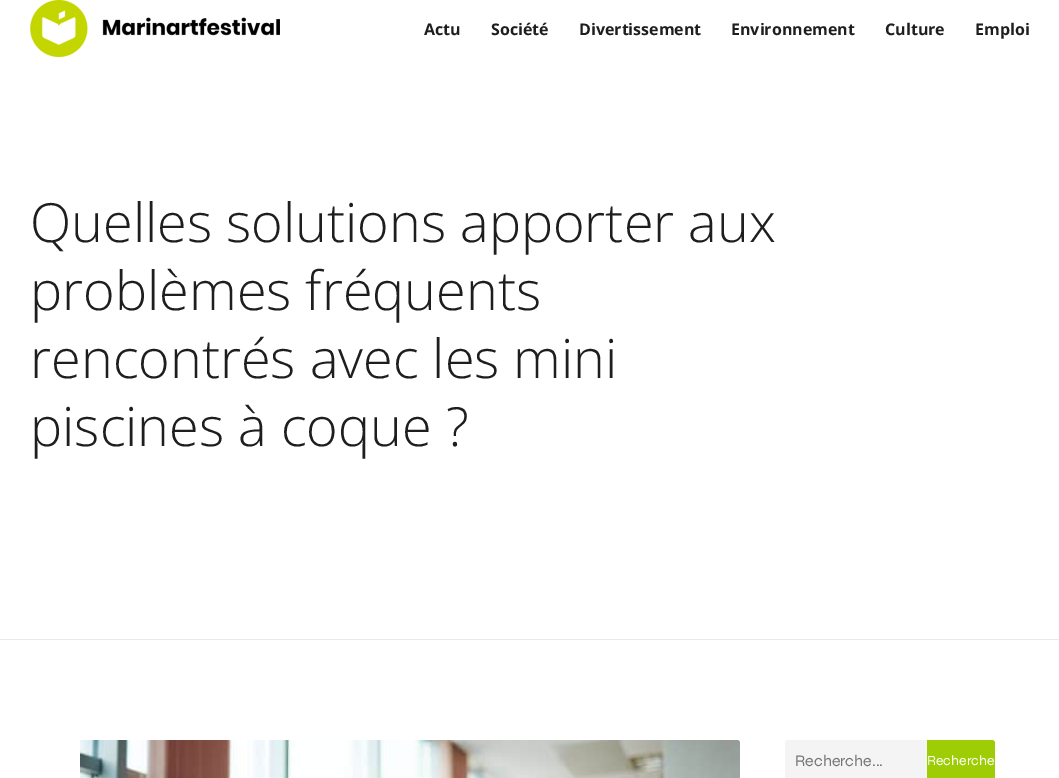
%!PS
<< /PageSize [1059 778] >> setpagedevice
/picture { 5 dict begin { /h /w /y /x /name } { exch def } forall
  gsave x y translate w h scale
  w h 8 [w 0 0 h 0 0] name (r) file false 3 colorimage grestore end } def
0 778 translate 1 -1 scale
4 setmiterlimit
1 setgray
0 0 1059 778 rectfill
(img1.rgb) 30 0 250 57 picture
/OpenSans-Bold [16 0 0 -16 0 0] selectfont
0.118 setgray
424 35 moveto (Actu) show
491 35 moveto (Société) show
579 35 moveto (Divertissement) show
731 35 moveto (Environnement) show
885 35 moveto (Culture) show
975 35 moveto (Emploi) show
0.914 setgray
0 639 1059 1 rectfill
/OpenSans-Light [54 0 0 -54 0 0] selectfont
0.118 setgray
30 242 moveto (Quelles solutions apporter aux) show
30 310 moveto (problèmes fréquents) show
30 378 moveto (rencontrés avec les mini) show
30 446 moveto (piscines à coque ?) show
(img2.rgb) 80 740 660 38 picture
0.957 setgray
newpath 788 740 moveto 927 740 lineto 927 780 lineto 788 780 lineto 786.5 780 785 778.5 785 777 curveto 785 743 lineto 785 741.5 786.5 740 788 740 curveto closepath fill
/Syne-Regular [16 0 0 -16 0 0] selectfont
0.459 setgray
795 766 moveto (Recherche...) show
0.62 0.804 0.02 setrgbcolor
newpath 927 740 moveto 992 740 lineto 993.5 740 995 741.5 995 743 curveto 995 777 lineto 995 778.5 993.5 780 992 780 curveto 927 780 lineto closepath fill
/Syne-Regular [14 0 0 -14 0 0] selectfont
1 setgray
927 765 moveto (Recherche) show
showpage
